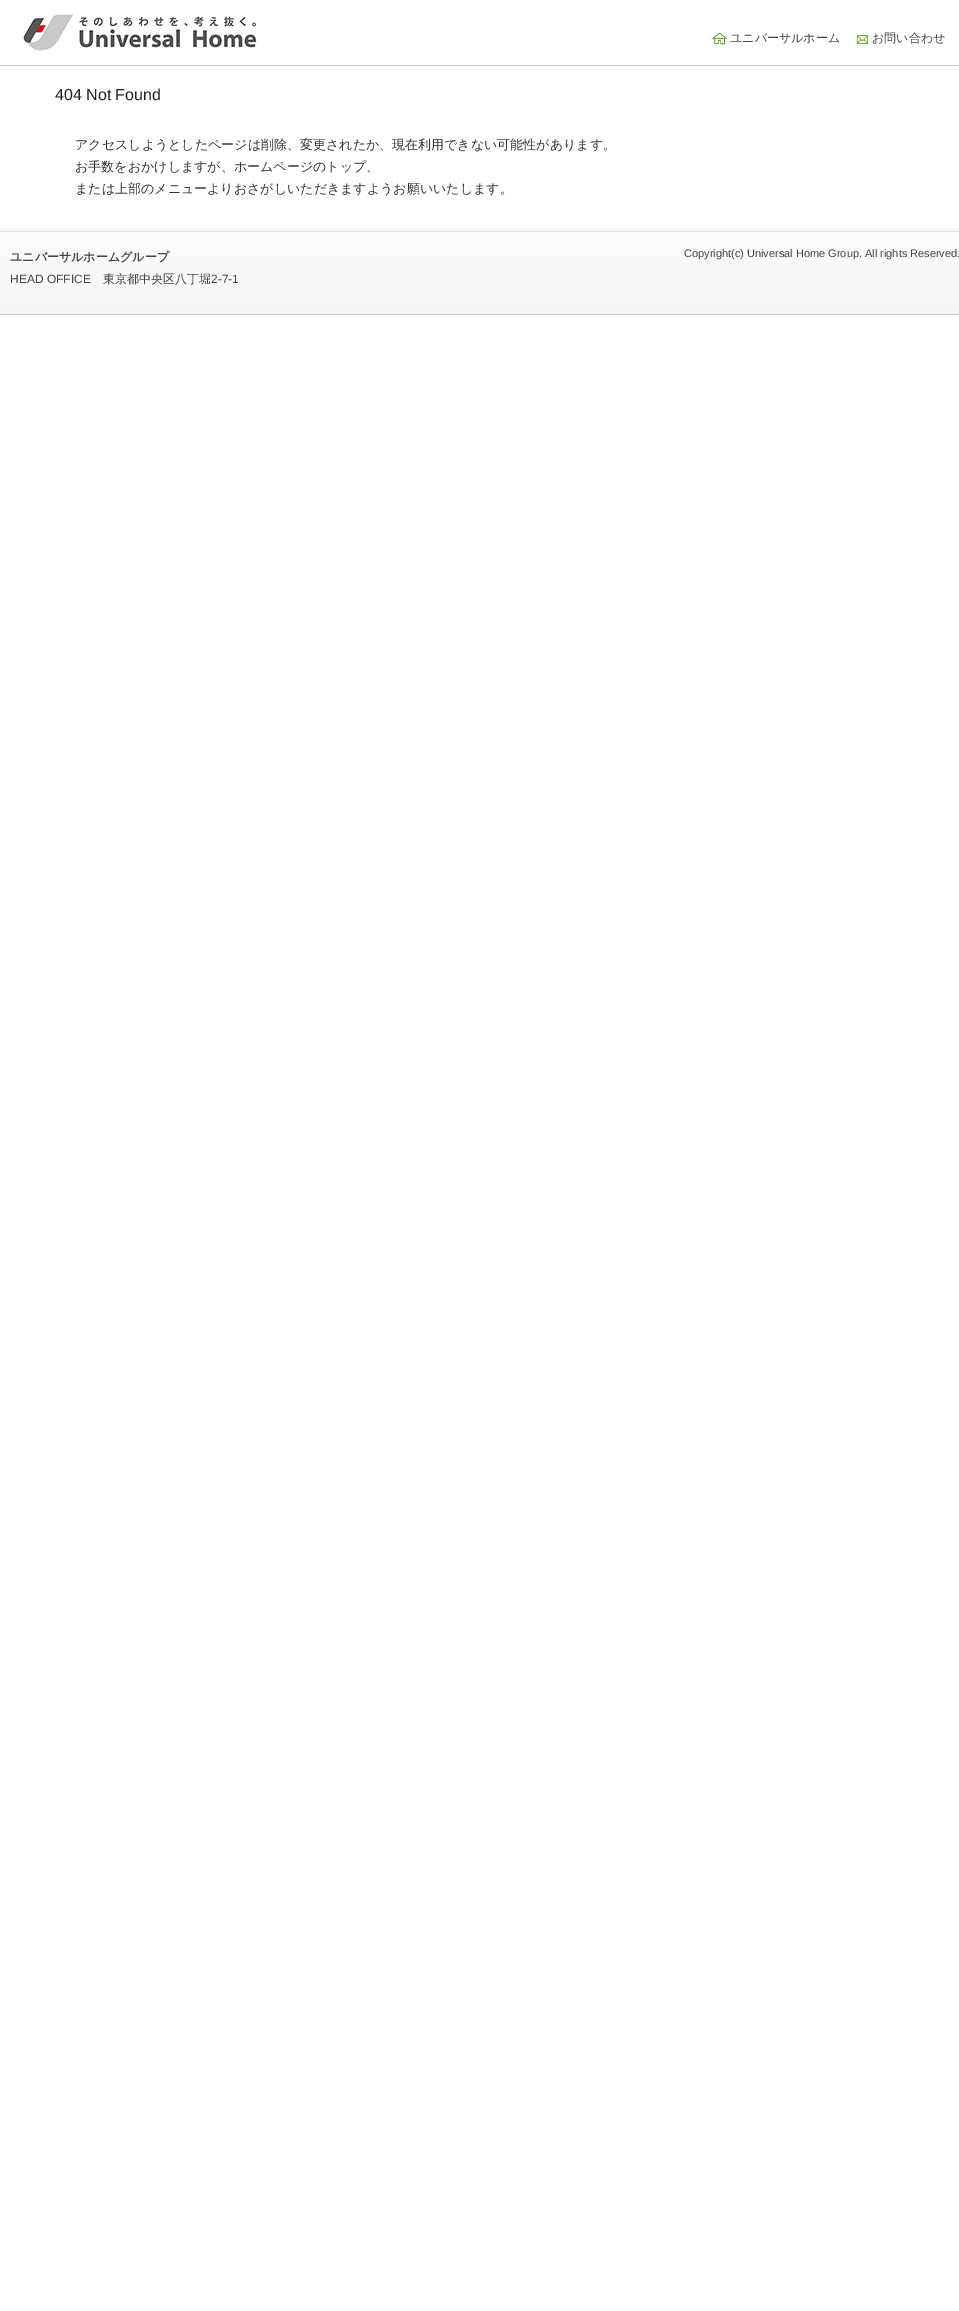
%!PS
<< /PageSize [959 2311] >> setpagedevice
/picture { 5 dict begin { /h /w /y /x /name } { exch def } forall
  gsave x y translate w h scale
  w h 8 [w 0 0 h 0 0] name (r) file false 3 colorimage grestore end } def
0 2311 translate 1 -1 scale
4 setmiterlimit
1 setgray
0 0 959 2311 rectfill
0.8 setgray
0 65 959 1 rectfill
(img1.rgb) 23 14 234 37 picture
(img2.rgb) 712 32 15 13 picture
/WenQuanYiZenHei-Medium [12 0 0 -12 0 0] selectfont
0.267 setgray
730 42 moveto (ユニバーサルホーム) show
(img3.rgb) 856 35 13 9 picture
872 42 moveto (お問い合わせ) show
/LiberationSans-Regular [16 0 0 -16 0 0] selectfont
0.133 setgray
55 100 moveto (404 Not Found) show
/WenQuanYiZenHei-Medium [13 0 0 -13 0 0] selectfont
0.2 setgray
75 149 moveto (アクセスしようとしたページは削除、変更されたか、現在利用できない可能性があります。) show
75 171 moveto (お手数をおかけしますが、ホームページのトップ、) show
75 193 moveto (または上部のメニューよりおさがしいただきますようお願いいたします。) show
(img4.rgb) 0 228 959 87 picture
/WenQuanYiZenHei-Bold [12 0 0 -12 0 0] selectfont
0.267 setgray
10 261 moveto (ユニバーサルホームグループ) show
/LiberationSans-Regular [12 0 0 -12 0 0] selectfont
10 283 moveto (HEAD OFFICE) show
/WenQuanYiZenHei-Medium [12 0 0 -12 0 0] selectfont
103 283 moveto (東京都中央区八丁堀) show
/LiberationSans-Regular [12 0 0 -12 0 0] selectfont
211 283 moveto (2-7-1) show
/LiberationSans-Regular [11 0 0 -11 0 0] selectfont
684 257 moveto (Copyright\(c\) Universal Home Group. All rights Reserved.) show
showpage
